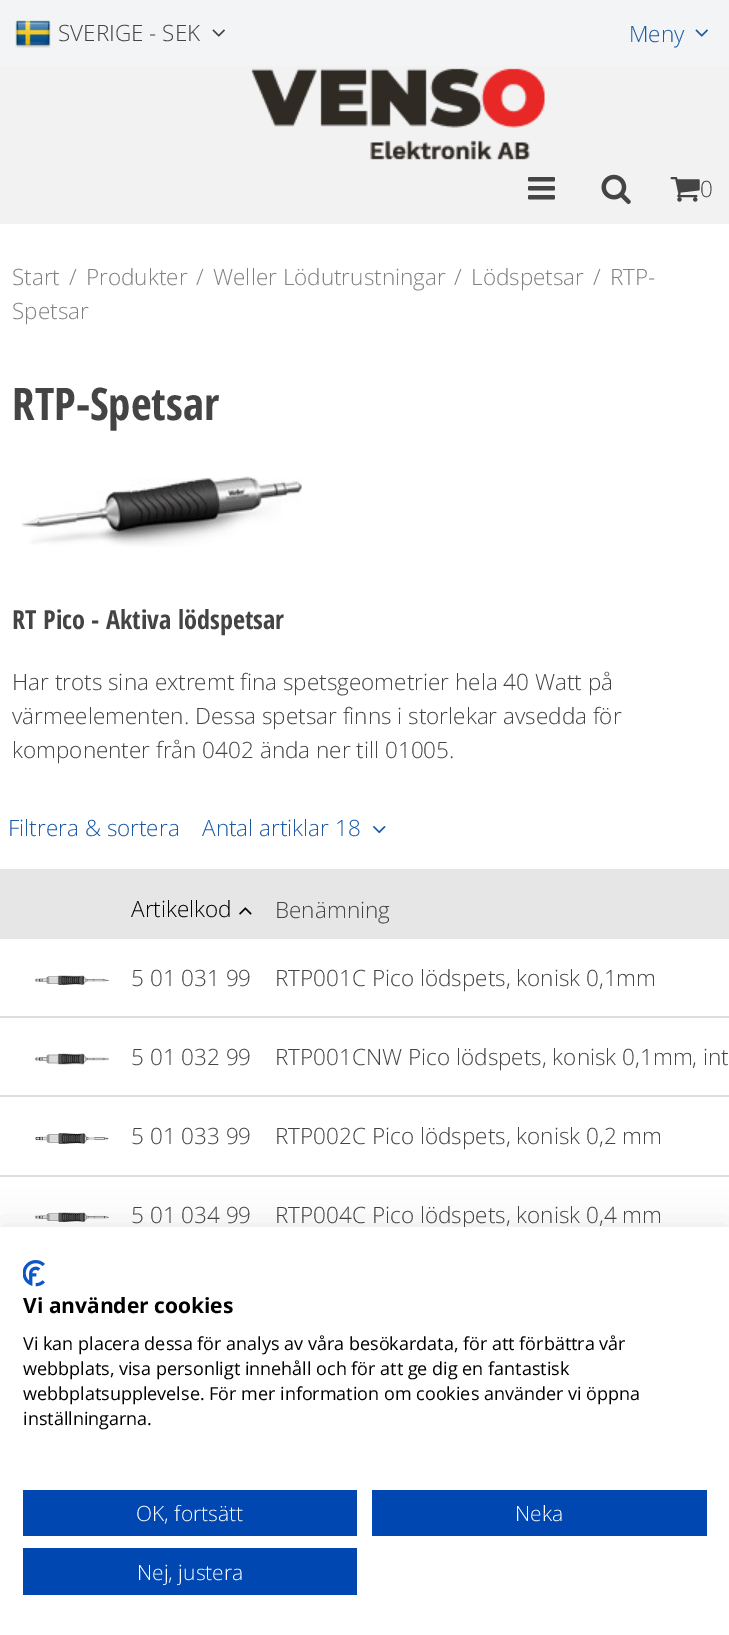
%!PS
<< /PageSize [729 1635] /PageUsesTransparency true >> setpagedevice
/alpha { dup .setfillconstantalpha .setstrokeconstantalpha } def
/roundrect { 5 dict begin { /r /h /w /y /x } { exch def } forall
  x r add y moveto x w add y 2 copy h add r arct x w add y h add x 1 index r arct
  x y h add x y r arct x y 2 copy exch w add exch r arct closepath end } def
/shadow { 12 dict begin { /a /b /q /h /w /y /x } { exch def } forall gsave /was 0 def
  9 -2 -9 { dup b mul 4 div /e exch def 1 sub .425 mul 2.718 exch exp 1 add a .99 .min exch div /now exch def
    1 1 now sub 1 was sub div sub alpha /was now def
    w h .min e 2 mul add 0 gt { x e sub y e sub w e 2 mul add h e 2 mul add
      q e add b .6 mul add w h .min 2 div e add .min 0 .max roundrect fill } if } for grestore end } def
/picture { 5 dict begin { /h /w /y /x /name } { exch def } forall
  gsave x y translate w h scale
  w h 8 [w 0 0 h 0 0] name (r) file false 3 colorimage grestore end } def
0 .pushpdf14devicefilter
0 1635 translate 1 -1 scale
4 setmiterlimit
1 setgray
0 0 729 1635 rectfill
0.949 setgray
0 66 729 158 rectfill
0.953 0.957 0.961 setrgbcolor
0 0 729 66 rectfill
(img1.rgb) 15 20 36 28 picture
/OpenSans-Light [22.5 0 0 -22.5 0 0] selectfont
0.267 setgray
58 41 moveto (SVERIGE - SEK) show
(img2.rgb) 212 29 13 8 picture
0.106 0.349 0.643 setrgbcolor
629 42 moveto (Meny) show
(img3.rgb) 695 29 13 8 picture
(img4.rgb) 251 68 294 92 picture
(img5.rgb) 528 177 27 23 picture
(img6.rgb) 601 174 30 30 picture
(img7.rgb) 670 177 30 25 picture
0.267 setgray
700 197 moveto (0) show
0.502 setgray
12 285 moveto (Start) show
69 285 moveto (/) show
86 285 moveto (Produkter) show
196 285 moveto (/) show
213 285 moveto (Weller Lödutrustningar) show
454 285 moveto (/) show
471 285 moveto (Lödspetsar) show
593 285 moveto (/) show
610 285 moveto (RTP-) show
12 319 moveto (Spetsar) show
/OpenSansCondensed-Bold [45 0 0 -45 0 0] selectfont
0.267 setgray
12 420 moveto (RTP-Spetsar) show
(img8.rgb) 21 476 281 71 picture
/OpenSansCondensed-Bold [26.25 0 0 -26.25 0 0] selectfont
12 629 moveto (RT Pico - Aktiva lödspetsar) show
/OpenSans-Light [22.5 0 0 -22.5 0 0] selectfont
12 690 moveto (Har trots sina extremt fina spetsgeometrier hela 40 Watt på) show
12 724 moveto (värmeelementen. Dessa spetsar finns i storlekar avsedda för) show
12 758 moveto (komponenter från 0402 ända ner till 01005.) show
0.106 0.349 0.643 setrgbcolor
8 836 moveto (Filtrera & sortera) show
202 836 moveto (Antal artiklar 18) show
(img9.rgb) 373 826 13 8 picture
0.902 setgray
0 869 729 70 rectfill
0 setgray
131 917 moveto (Artikelkod) show
(img10.rgb) 239 907 13 8 picture
0.267 setgray
275 918 moveto (Benämning) show
0.867 setgray
0 1016 729 2 rectfill
(img11.rgb) 35 975 74 10 picture
0.267 setgray
131 986 moveto (5 01 031 99) show
275 986 moveto (RTP001C Pico lödspets, konisk 0,1mm) show
0.867 setgray
0 1095 729 2 rectfill
(img12.rgb) 35 1053 74 12 picture
0.267 setgray
131 1065 moveto (5 01 032 99) show
275 1065 moveto (RTP001CNW Pico lödspets, konisk 0,1mm, int) show
0.867 setgray
0 1175 729 2 rectfill
(img13.rgb) 35 1133 74 11 picture
0.267 setgray
131 1144 moveto (5 01 033 99) show
275 1144 moveto (RTP002C Pico lödspets, konisk 0,2 mm) show
(img14.rgb) 35 1212 74 10 picture
131 1223 moveto (5 01 034 99) show
275 1223 moveto (RTP004C Pico lödspets, konisk 0,4 mm) show
0 setgray
0 1227 729 408 0 18 0.1 shadow
1 setgray
0 1227 729 408 rectfill
(img15.rgb) 23 1260 22 27 picture
/OpenSans-Bold [21 0 0 -21 0 0] selectfont
0 setgray
23 1313 moveto (Vi använder cookies) show
/OpenSans-Regular [18 0 0 -18 0 0] selectfont
23 1350 moveto (Vi kan placera dessa för analys av våra besökardata, för att förbättra vår) show
23 1375 moveto (webbplats, visa personligt innehåll och för att ge dig en fantastisk) show
23 1400 moveto (webbplatsupplevelse. För mer information om cookies använder vi öppna) show
23 1425 moveto (inställningarna.) show
0 0.278 0.698 setrgbcolor
23 1490 334 46 rectfill
/OpenSans-Light [21 0 0 -21 0 0] selectfont
1 setgray
136 1521 moveto (OK, fortsätt) show
0 0.278 0.698 setrgbcolor
372 1490 335 46 rectfill
1 setgray
515 1521 moveto (Neka) show
0 0.278 0.698 setrgbcolor
23 1548 334 47 rectfill
1 setgray
137 1580 moveto (Nej, justera) show
.poppdf14devicefilter showpage
